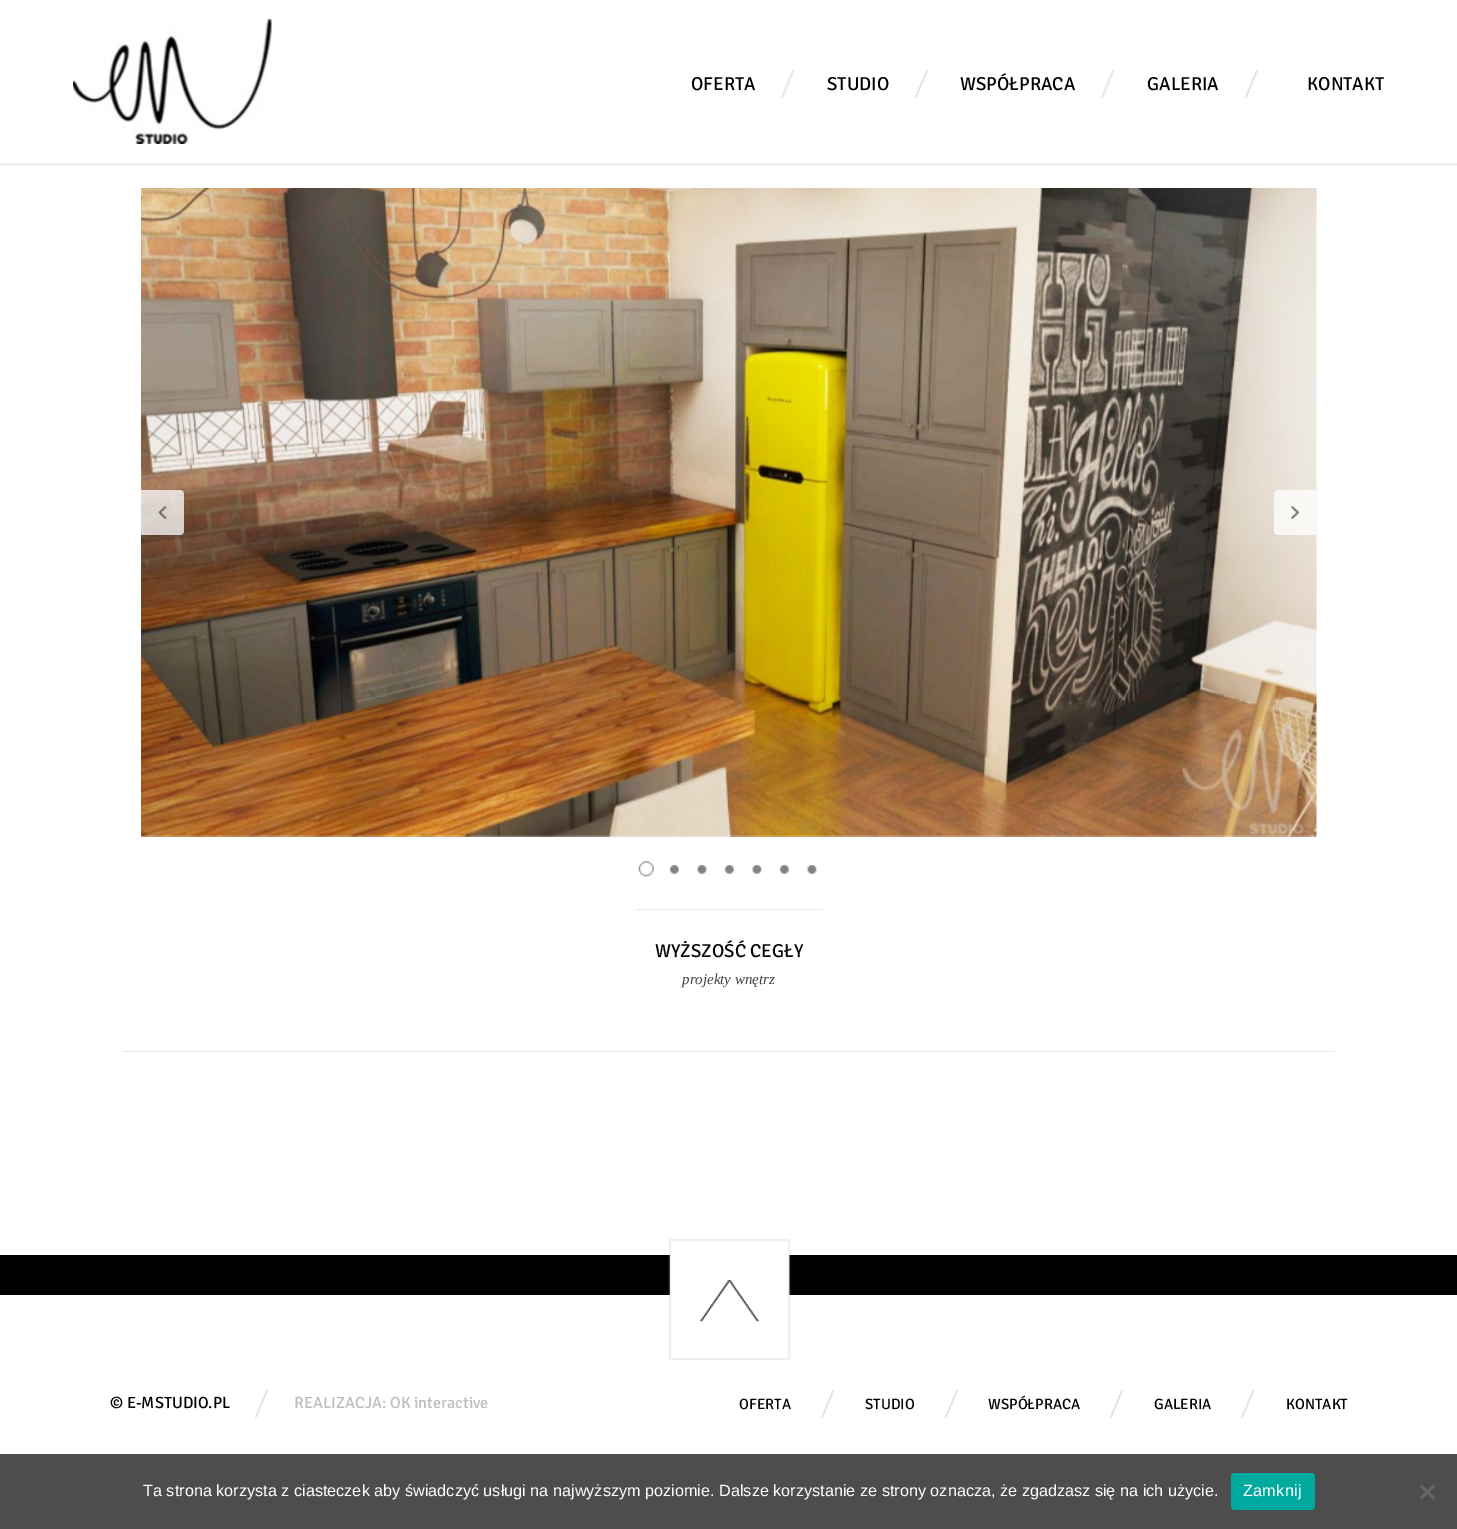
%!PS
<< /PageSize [1457 1529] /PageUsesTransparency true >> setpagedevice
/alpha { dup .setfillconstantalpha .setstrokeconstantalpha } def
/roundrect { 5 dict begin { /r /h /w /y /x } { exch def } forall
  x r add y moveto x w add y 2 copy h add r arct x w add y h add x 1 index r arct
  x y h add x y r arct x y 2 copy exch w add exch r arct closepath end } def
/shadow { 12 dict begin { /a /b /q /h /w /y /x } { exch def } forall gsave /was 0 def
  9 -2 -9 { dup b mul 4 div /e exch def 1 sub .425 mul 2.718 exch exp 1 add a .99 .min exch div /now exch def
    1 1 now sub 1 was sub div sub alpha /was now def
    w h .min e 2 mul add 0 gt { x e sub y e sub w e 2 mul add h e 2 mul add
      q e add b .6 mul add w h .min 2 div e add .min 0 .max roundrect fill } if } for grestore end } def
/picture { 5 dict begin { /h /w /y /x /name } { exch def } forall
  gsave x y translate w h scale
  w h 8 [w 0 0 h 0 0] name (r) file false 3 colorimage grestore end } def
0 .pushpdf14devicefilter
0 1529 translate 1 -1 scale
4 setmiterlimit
1 setgray
0 0 1457 1529 rectfill
0.941 setgray
0 163 1457 3 rectfill
(img1.rgb) 73 19 199 125 picture
(img2.rgb) 781 70 14 28 picture
/Signika-Light [18.75 0 0 -18.75 0 0] selectfont
0 setgray
691 90 moveto (OFERTA) show
(img3.rgb) 915 70 13 28 picture
827 90 moveto (STUDIO) show
(img4.rgb) 1101 70 14 28 picture
960 90 moveto (WSPÓŁPRACA) show
(img5.rgb) 1245 70 13 28 picture
1147 90 moveto (GALERIA) show
1307 90 moveto (KONTAKT) show
(img6.rgb) 141 188 1176 649 picture
0.5 alpha
1 setgray
newpath 141 490 moveto 180 490 lineto 182 490 184 492 184 494 curveto 184 531 lineto 184 533 182 535 180 535 curveto 141 535 lineto closepath fill
1 alpha
(img7.rgb) 158 506 9 13 picture
0.5 alpha
newpath 141 490 moveto 180 490 lineto 182 490 184 492 184 494 curveto 184 531 lineto 184 533 182 535 180 535 curveto 141 535 lineto closepath fill
1 alpha
(img8.rgb) 158 506 9 13 picture
0.5 alpha
newpath 1278 490 moveto 1316 490 lineto 1316 535 lineto 1278 535 lineto 1276 535 1274 533 1274 531 curveto 1274 494 lineto 1274 492 1276 490 1278 490 curveto closepath fill
1 alpha
(img9.rgb) 1291 506 8 13 picture
0.5 alpha
newpath 1278 490 moveto 1316 490 lineto 1316 535 lineto 1278 535 lineto 1276 535 1274 533 1274 531 curveto 1274 494 lineto 1274 492 1276 490 1278 490 curveto closepath fill
1 alpha
(img10.rgb) 1291 506 8 13 picture
(img11.rgb) 638 861 16 16 picture
(img12.rgb) 669 864 10 10 picture
(img13.rgb) 697 864 10 10 picture
(img12.rgb) 724 864 10 10 picture
(img13.rgb) 752 864 10 10 picture
(img12.rgb) 779 864 10 10 picture
(img13.rgb) 807 864 10 10 picture
0.914 setgray
635 909 188 1 rectfill
0.024 setgray
655 957 moveto (WYŻSZOŚĆ CEGŁY) show
/LiberationSerif-Italic [15 0 0 -15 0 0] selectfont
0.259 setgray
682 984 moveto (projekty wnętrz) show
0.914 setgray
123 1051 1212 1 rectfill
0 setgray
0 1255 1457 40 rectfill
0.78 setgray
670 1240 119 119 0 1 1 shadow
1 setgray
671 1241 117 117 rectfill
(img14.rgb) 700 1279 59 43 picture
0.941 setgray
670.5 1240.5 118 118 rectstroke
/Signika-Light [16.25 0 0 -16.25 0 0] selectfont
0 setgray
110 1408 moveto (© E-MSTUDIO.PL) show
(img3.rgb) 255 1390 13 28 picture
0.741 setgray
294 1408 moveto (REALIZACJA: OK interactive) show
(img15.rgb) 821 1390 13 28 picture
/Signika-Light [15 0 0 -15 0 0] selectfont
0 setgray
739 1409 moveto (OFERTA) show
(img5.rgb) 945 1390 13 28 picture
865 1409 moveto (STUDIO) show
(img5.rgb) 1110 1390 13 28 picture
988 1409 moveto (WSPÓŁPRACA) show
(img15.rgb) 1241 1390 13 28 picture
1154 1409 moveto (GALERIA) show
1286 1409 moveto (KONTAKT) show
0.302 setgray
0 1454 1457 75 rectfill
/LiberationSans-Regular [16.25 0 0 -16.25 0 0] selectfont
1 setgray
143 1496 moveto (Ta strona korzysta z ciasteczek aby świadczyć usługi na najwyższym poziomie. Dalsze korzystanie ze strony oznacza, że zgadzasz się na ich użycie.) show
0 0.663 0.616 setrgbcolor
1231 1473 84 37 4 roundrect fill
1 setgray
1243 1496 moveto 0.25 0 (Zamknij) ashow
0.404 setgray
newpath 1433 1484.5 moveto 1435 1486.5 lineto 1422 1499.5 lineto 1420 1498 lineto closepath fill
newpath 1420 1486.5 moveto 1422 1484.5 lineto 1435 1498 lineto 1433 1499.5 lineto closepath fill
.poppdf14devicefilter showpage
